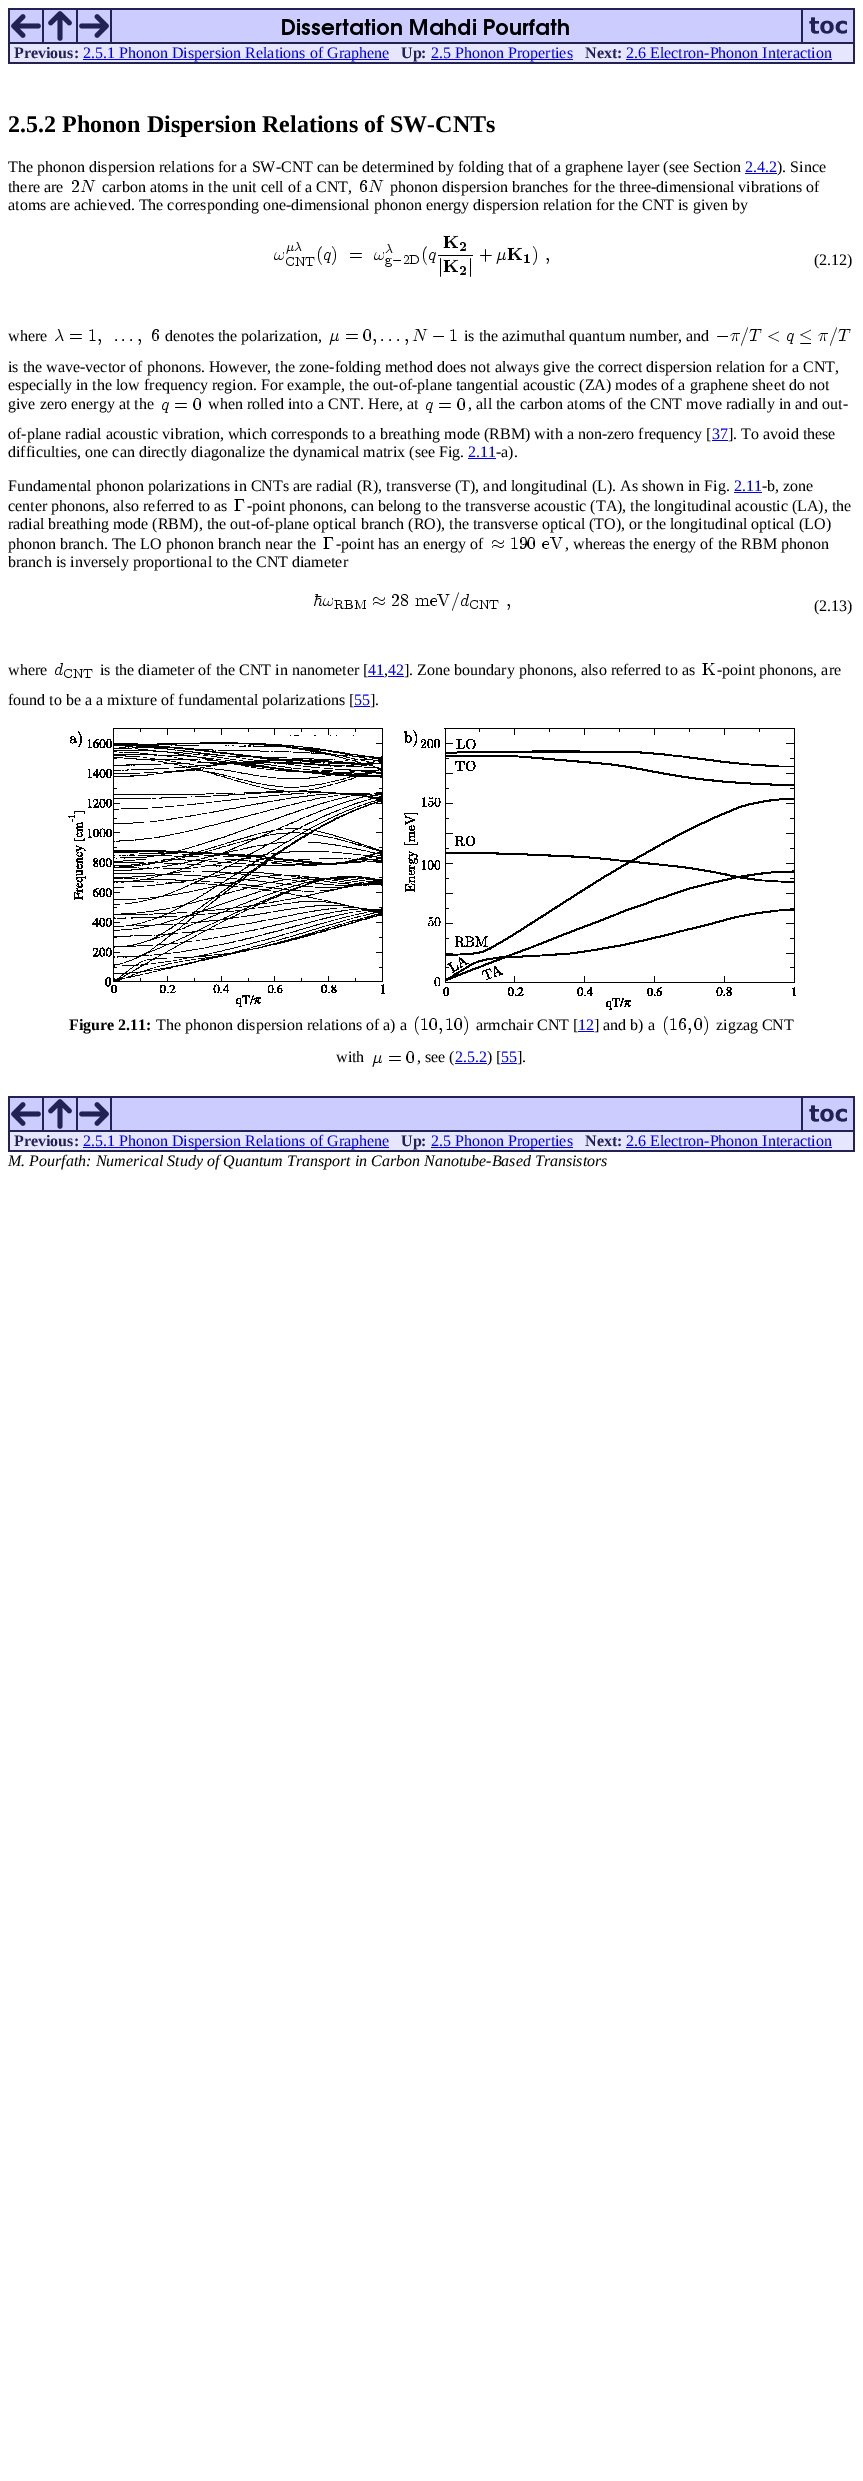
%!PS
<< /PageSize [863 2481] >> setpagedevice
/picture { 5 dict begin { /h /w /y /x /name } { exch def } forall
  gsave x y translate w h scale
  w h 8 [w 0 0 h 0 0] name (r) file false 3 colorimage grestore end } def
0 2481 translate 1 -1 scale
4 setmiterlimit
1 setgray
0 0 863 2481 rectfill
0.133 0.133 0.333 setrgbcolor
8 8 847 56 rectfill
0.8 0.8 1 setrgbcolor
10 10 32 32 rectfill
(img1.rgb) 11 14 30 24 picture
44 10 32 32 rectfill
(img2.rgb) 48 11 24 30 picture
78 10 32 32 rectfill
(img3.rgb) 79 14 30 24 picture
112 10 689 32 rectfill
(img4.rgb) 282 19 287 16 picture
803 10 50 32 rectfill
(img5.rgb) 809 17 38 17 picture
0.902 0.902 1 setrgbcolor
10 44 843 18 rectfill
/LiberationSerif-Bold [16 0 0 -16 0 0] selectfont
0.133 0.133 0.333 setrgbcolor
14 58 moveto (Previous:) show
0 0 0.933 setrgbcolor
83 59 306 1 rectfill
/LiberationSerif-Regular [16 0 0 -16 0 0] selectfont
83 58 moveto (2.5.1 Phonon Dispersion Relations of Graphene) show
/LiberationSerif-Bold [16 0 0 -16 0 0] selectfont
0.133 0.133 0.333 setrgbcolor
401 58 moveto (Up:) show
0 0 0.933 setrgbcolor
431 59 142 1 rectfill
/LiberationSerif-Regular [16 0 0 -16 0 0] selectfont
431 58 moveto (2.5 Phonon Properties) show
/LiberationSerif-Bold [16 0 0 -16 0 0] selectfont
0.133 0.133 0.333 setrgbcolor
585 58 moveto (Next:) show
/LiberationSerif-Regular [16 0 0 -16 0 0] selectfont
0 0 0.933 setrgbcolor
626 58 moveto (2.6 Electron-Phonon Interaction) show
626 59 206 1 rectfill
/LiberationSerif-Bold [24 0 0 -24 0 0] selectfont
0 setgray
8 132 moveto (2.5.2 Phonon Dispersion Relations of SW-CNTs) show
/LiberationSerif-Regular [16 0 0 -16 0 0] selectfont
8 172 moveto (The phonon dispersion relations for a SW-CNT can be determined by folding that of a graphene layer \(see Section) show
0 0 0.933 setrgbcolor
745 172 moveto (2.4.2) show
745 173 32 1 rectfill
0 setgray
777 172 moveto (\). Since) show
8 192 moveto (there are) show
(img6.rgb) 72 180 24 12 picture
102 192 moveto (carbon atoms in the unit cell of a CNT,) show
(img7.rgb) 360 180 24 12 picture
390 192 moveto (phonon dispersion branches for the three-dimensional vibrations of) show
8 210 moveto (atoms are achieved. The corresponding one-dimensional phonon energy dispersion relation for the CNT is given by) show
(img8.rgb) 274 235 275 42 picture
814 265 moveto (\(2.12\)) show
8 341 moveto (where) show
(img9.rgb) 55 329 104 16 picture
165 341 moveto (denotes the polarization,) show
(img10.rgb) 329 329 128 16 picture
464 341 moveto (is the azimuthal quantum number, and) show
(img11.rgb) 717 327 134 19 picture
8 372 moveto (is the wave-vector of phonons. However, the zone-folding method does not always give the correct dispersion relation for a CNT,) show
8 390 moveto (especially in the low frequency region. For example, the out-of-plane tangential acoustic \(ZA\) modes of a graphene sheet do not) show
8 409 moveto (give zero energy at the) show
(img12.rgb) 162 398 39 15 picture
208 409 moveto (when rolled into a CNT. Here, at) show
(img12.rgb) 426 398 39 15 picture
468 409 moveto (, all the carbon atoms of the CNT move radially in and out-) show
8 439 moveto (of-plane radial acoustic vibration, which corresponds to a breathing mode \(RBM\) with a non-zero frequency [) show
0 0 0.933 setrgbcolor
712 439 moveto (37) show
712 440 16 1 rectfill
0 setgray
728 439 moveto (]. To avoid these) show
8 457 moveto (difficulties, one can directly diagonalize the dynamical matrix \(see Fig.) show
0 0 0.933 setrgbcolor
468 457 moveto (2.11) show
468 458 28 1 rectfill
0 setgray
496 457 moveto (-a\).) show
8 491 moveto (Fundamental phonon polarizations in CNTs are radial \(R\), transverse \(T\), and longitudinal \(L\). As shown in Fig.) show
0 0 0.933 setrgbcolor
734 491 moveto (2.11) show
734 492 28 1 rectfill
0 setgray
762 491 moveto (-b, zone) show
8 511 moveto (center phonons, also referred to as) show
(img13.rgb) 234 499 11 12 picture
247 511 moveto (-point phonons, can belong to the transverse acoustic \(TA\), the longitudinal acoustic \(LA\), the) show
8 529 moveto (radial breathing mode \(RBM\), the out-of-plane optical branch \(RO\), the transverse optical \(TO\), or the longitudinal optical \(LO\)) show
8 549 moveto (phonon branch. The LO phonon branch near the) show
(img13.rgb) 323 537 11 12 picture
336 549 moveto (-point has an energy of) show
(img14.rgb) 492 537 71 12 picture
565 549 moveto (, whereas the energy of the RBM phonon) show
8 567 moveto (branch is inversely proportional to the CNT diameter) show
(img15.rgb) 314 592 196 19 picture
814 611 moveto (\(2.13\)) show
8 675 moveto (where) show
(img16.rgb) 55 663 38 15 picture
100 675 moveto (is the diameter of the CNT in nanometer [) show
0 0 0.933 setrgbcolor
368 675 moveto (41 42) show
368 676 16 1 rectfill
0 setgray
404 675 moveto (]. Zone boundary phonons, also referred to as) show
(img17.rgb) 702 663 13 12 picture
717 675 moveto (-point phonons, are) show
384 675 moveto (,) show
0 0 0.933 setrgbcolor
388 676 16 1 rectfill
0 setgray
8 705 moveto (found to be a a mixture of fundamental polarizations [) show
0 0 0.933 setrgbcolor
354 705 moveto (55) show
354 706 16 1 rectfill
0 setgray
370 705 moveto (].) show
(img18.rgb) 68 728 728 282 picture
/LiberationSerif-Bold [16 0 0 -16 0 0] selectfont
69 1030 moveto (Figure 2.11:) show
/LiberationSerif-Regular [16 0 0 -16 0 0] selectfont
156 1030 moveto (The phonon dispersion relations of a\) a) show
(img19.rgb) 415 1016 53 19 picture
476 1030 moveto (armchair CNT [) show
0 0 0.933 setrgbcolor
578 1030 moveto (12) show
578 1031 16 1 rectfill
0 setgray
594 1030 moveto (] and b\) a) show
(img20.rgb) 664 1016 44 19 picture
716 1030 moveto (zigzag CNT) show
336 1062 moveto (with) show
(img21.rgb) 372 1051 42 16 picture
417 1062 moveto (, see \() show
0 0 0.933 setrgbcolor
455 1062 moveto (2.5.2) show
455 1063 32 1 rectfill
0 setgray
487 1062 moveto (\) [) show
0 0 0.933 setrgbcolor
501 1062 moveto (55) show
501 1063 16 1 rectfill
0 setgray
517 1062 moveto (].) show
0.133 0.133 0.333 setrgbcolor
8 1096 847 56 rectfill
0.8 0.8 1 setrgbcolor
10 1098 32 32 rectfill
(img1.rgb) 11 1102 30 24 picture
44 1098 32 32 rectfill
(img2.rgb) 48 1099 24 30 picture
78 1098 32 32 rectfill
(img3.rgb) 79 1102 30 24 picture
112 1098 689 32 rectfill
803 1098 50 32 rectfill
(img5.rgb) 809 1105 38 17 picture
0.902 0.902 1 setrgbcolor
10 1132 843 18 rectfill
/LiberationSerif-Bold [16 0 0 -16 0 0] selectfont
0.133 0.133 0.333 setrgbcolor
14 1146 moveto (Previous:) show
0 0 0.933 setrgbcolor
83 1147 306 1 rectfill
/LiberationSerif-Regular [16 0 0 -16 0 0] selectfont
83 1146 moveto (2.5.1 Phonon Dispersion Relations of Graphene) show
/LiberationSerif-Bold [16 0 0 -16 0 0] selectfont
0.133 0.133 0.333 setrgbcolor
401 1146 moveto (Up:) show
0 0 0.933 setrgbcolor
431 1147 142 1 rectfill
/LiberationSerif-Regular [16 0 0 -16 0 0] selectfont
431 1146 moveto (2.5 Phonon Properties) show
/LiberationSerif-Bold [16 0 0 -16 0 0] selectfont
0.133 0.133 0.333 setrgbcolor
585 1146 moveto (Next:) show
/LiberationSerif-Regular [16 0 0 -16 0 0] selectfont
0 0 0.933 setrgbcolor
626 1146 moveto (2.6 Electron-Phonon Interaction) show
626 1147 206 1 rectfill
/LiberationSerif-Italic [16 0 0 -16 0 0] selectfont
0 setgray
8 1166 moveto (M. Pourfath: Numerical Study of Quantum Transport in Carbon Nanotube-Based Transistors) show
showpage
